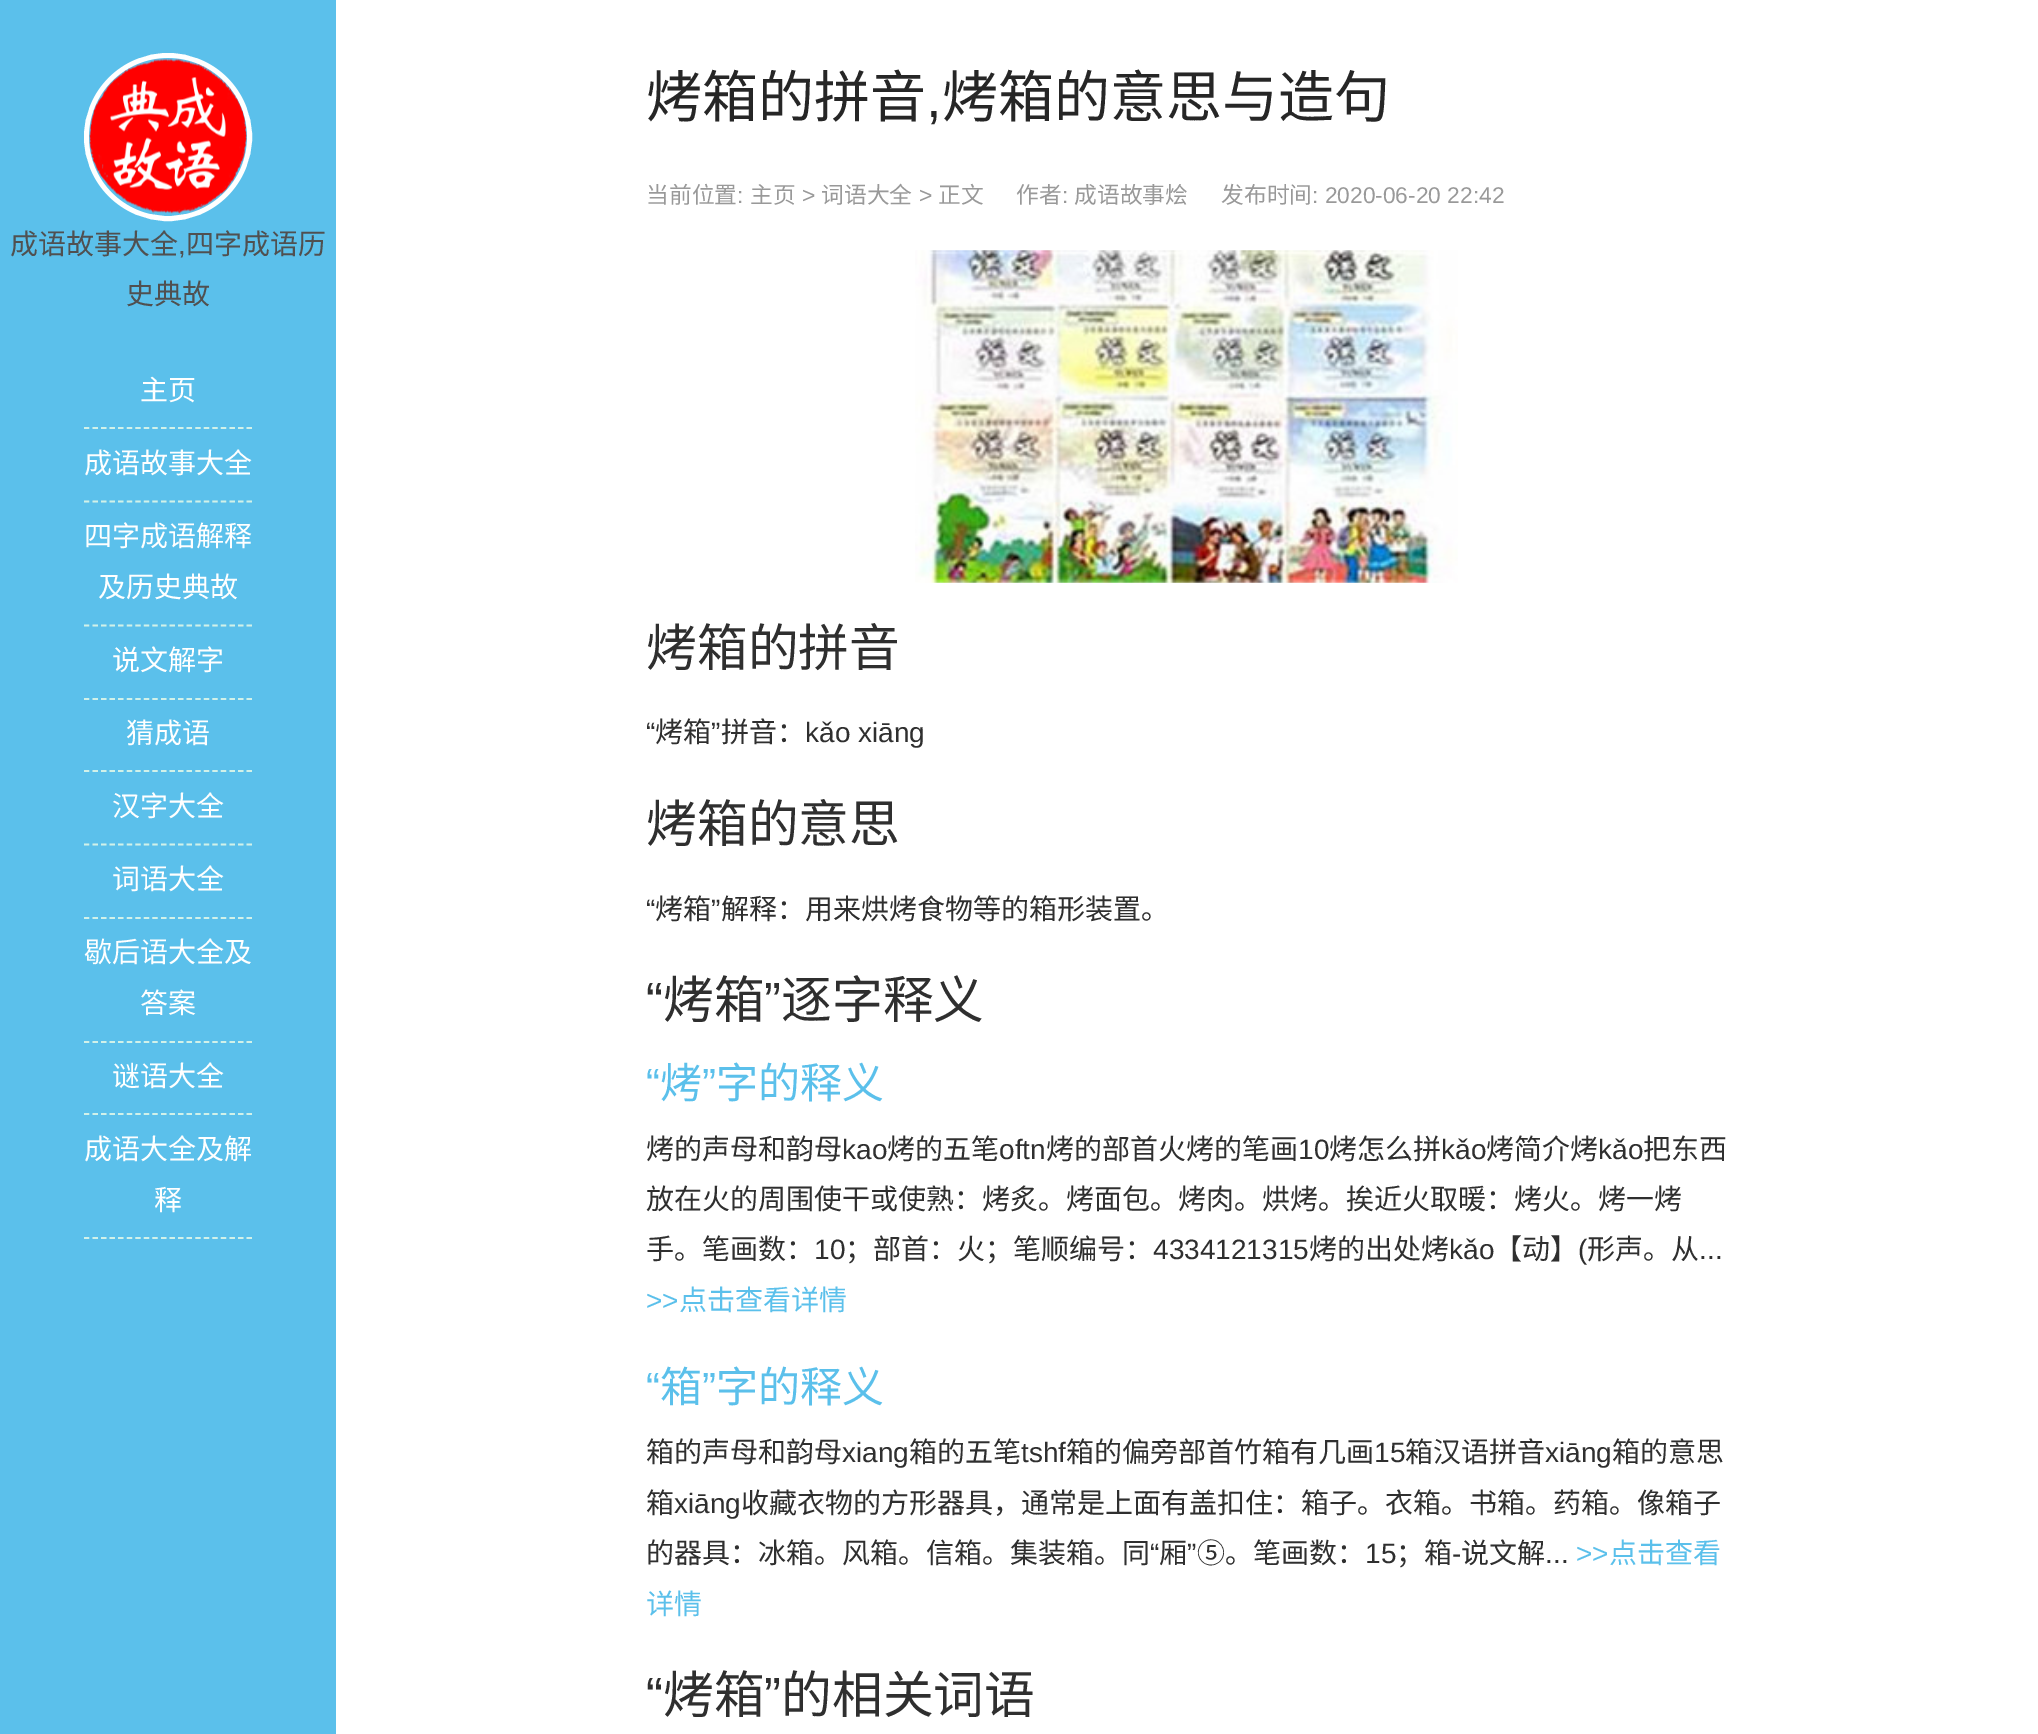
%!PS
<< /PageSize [2038 1734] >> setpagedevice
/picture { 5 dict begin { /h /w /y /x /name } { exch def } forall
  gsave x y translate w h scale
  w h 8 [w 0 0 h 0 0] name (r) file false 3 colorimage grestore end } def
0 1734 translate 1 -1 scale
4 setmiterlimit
1 setgray
0 0 2038 1734 rectfill
0.357 0.753 0.922 setrgbcolor
0 0 336 1734 rectfill
1 setgray
5 setlinewidth
newpath 168 137 81.5 0 360 arc closepath stroke
(img1.rgb) 89 58 158 156 picture
/NotoSansCJKSC-Regular [28 0 0 -28 0 0] selectfont
0.314 setgray
10 254 moveto (成语故事大全) show
/LiberationSans-Regular [28 0 0 -28 0 0] selectfont
178 254 moveto (,) show
/NotoSansCJKSC-Regular [28 0 0 -28 0 0] selectfont
186 254 moveto (四字成语历) show
126 304 moveto (史典故) show
0.82 0.945 0.914 setrgbcolor
1.8 setlinewidth
[5.25 3.31] 0 setdash
newpath 84 428 moveto 252 428 lineto stroke
1 setgray
140 400 moveto (主页) show
0.82 0.945 0.914 setrgbcolor
newpath 84 501.5 moveto 252 501.5 lineto stroke
1 setgray
84 473 moveto (成语故事大全) show
0.82 0.945 0.914 setrgbcolor
newpath 84 625.5 moveto 252 625.5 lineto stroke
1 setgray
84 546 moveto (四字成语解释) show
98 597 moveto (及历史典故) show
0.82 0.945 0.914 setrgbcolor
newpath 84 699 moveto 252 699 lineto stroke
1 setgray
112 670 moveto (说文解字) show
0.82 0.945 0.914 setrgbcolor
newpath 84 771 moveto 252 771 lineto stroke
1 setgray
126 743 moveto (猜成语) show
0.82 0.945 0.914 setrgbcolor
newpath 84 844.5 moveto 252 844.5 lineto stroke
1 setgray
112 816 moveto (汉字大全) show
0.82 0.945 0.914 setrgbcolor
newpath 84 918 moveto 252 918 lineto stroke
1 setgray
112 889 moveto (词语大全) show
0.82 0.945 0.914 setrgbcolor
newpath 84 1042 moveto 252 1042 lineto stroke
1 setgray
84 962 moveto (歇后语大全及) show
140 1013 moveto (答案) show
0.82 0.945 0.914 setrgbcolor
newpath 84 1114 moveto 252 1114 lineto stroke
1 setgray
112 1086 moveto (谜语大全) show
0.82 0.945 0.914 setrgbcolor
newpath 84 1238 moveto 252 1238 lineto stroke
1 setgray
84 1159 moveto (成语大全及解) show
154 1210 moveto (释) show
/NotoSansCJKSC-Regular [56 0 0 -56 0 0] selectfont
0.149 setgray
646 117 moveto (烤箱的拼音) show
/LiberationSans-Regular [56 0 0 -56 0 0] selectfont
926 117 moveto (,) show
/NotoSansCJKSC-Regular [56 0 0 -56 0 0] selectfont
942 117 moveto (烤箱的意思与造句) show
/NotoSansCJKSC-Regular [22.75 0 0 -22.75 0 0] selectfont
0.6 setgray
646 203 moveto (当前位置) show
/LiberationSans-Regular [22.75 0 0 -22.75 0 0] selectfont
737 203 moveto (:) show
/NotoSansCJKSC-Regular [22.75 0 0 -22.75 0 0] selectfont
750 203 moveto (主页) show
/LiberationSans-Regular [22.75 0 0 -22.75 0 0] selectfont
802 203 moveto (>) show
/NotoSansCJKSC-Regular [22.75 0 0 -22.75 0 0] selectfont
821 203 moveto (词语大全) show
/LiberationSans-Regular [22.75 0 0 -22.75 0 0] selectfont
919 203 moveto (>) show
/NotoSansCJKSC-Regular [22.75 0 0 -22.75 0 0] selectfont
938 203 moveto (正文) show
1016 203 moveto (作者) show
/LiberationSans-Regular [22.75 0 0 -22.75 0 0] selectfont
1062 203 moveto (:) show
/NotoSansCJKSC-Regular [22.75 0 0 -22.75 0 0] selectfont
1074 203 moveto (成语故事烩) show
1221 203 moveto (发布时间) show
/LiberationSans-Regular [22.75 0 0 -22.75 0 0] selectfont
1312 203 moveto (: 2020-06-20 22:42) show
(img2.rgb) 915 250 543 333 picture
/NotoSansCJKSC-Regular [50.75 0 0 -50.75 0 0] selectfont
0.184 setgray
646 666 moveto (烤箱的拼音) show
/LiberationSans-Regular [28 0 0 -28 0 0] selectfont
646 742 moveto (“) show
/NotoSansCJKSC-Regular [28 0 0 -28 0 0] selectfont
655 742 moveto (烤箱) show
/LiberationSans-Regular [28 0 0 -28 0 0] selectfont
711 742 moveto (”) show
/NotoSansCJKSC-Regular [28 0 0 -28 0 0] selectfont
721 742 moveto (拼音：) show
/LiberationSans-Regular [28 0 0 -28 0 0] selectfont
805 742 moveto (kǎo xiāng) show
/NotoSansCJKSC-Regular [50.75 0 0 -50.75 0 0] selectfont
646 842 moveto (烤箱的意思) show
/LiberationSans-Regular [28 0 0 -28 0 0] selectfont
646 919 moveto (“) show
/NotoSansCJKSC-Regular [28 0 0 -28 0 0] selectfont
655 919 moveto (烤箱) show
/LiberationSans-Regular [28 0 0 -28 0 0] selectfont
711 919 moveto (”) show
/NotoSansCJKSC-Regular [28 0 0 -28 0 0] selectfont
721 919 moveto (解释：用来烘烤食物等的箱形装置。) show
/LiberationSans-Regular [50.75 0 0 -50.75 0 0] selectfont
646 1018 moveto (“) show
/NotoSansCJKSC-Regular [50.75 0 0 -50.75 0 0] selectfont
663 1018 moveto (烤箱) show
/LiberationSans-Regular [50.75 0 0 -50.75 0 0] selectfont
764 1018 moveto (”) show
/NotoSansCJKSC-Regular [50.75 0 0 -50.75 0 0] selectfont
781 1018 moveto (逐字释义) show
/LiberationSans-Regular [42 0 0 -42 0 0] selectfont
0.357 0.753 0.922 setrgbcolor
646 1098 moveto (“) show
/NotoSansCJKSC-Regular [42 0 0 -42 0 0] selectfont
660 1098 moveto (烤) show
/LiberationSans-Regular [42 0 0 -42 0 0] selectfont
702 1098 moveto (”) show
/NotoSansCJKSC-Regular [42 0 0 -42 0 0] selectfont
716 1098 moveto (字的释义) show
/NotoSansCJKSC-Regular [28 0 0 -28 0 0] selectfont
0.184 setgray
646 1159 moveto (烤的声母和韵母) show
/LiberationSans-Regular [28 0 0 -28 0 0] selectfont
842 1159 moveto (kao) show
/NotoSansCJKSC-Regular [28 0 0 -28 0 0] selectfont
887 1159 moveto (烤的五笔) show
/LiberationSans-Regular [28 0 0 -28 0 0] selectfont
999 1159 moveto (oftn) show
/NotoSansCJKSC-Regular [28 0 0 -28 0 0] selectfont
1046 1159 moveto (烤的部首火烤的笔画) show
/LiberationSans-Regular [28 0 0 -28 0 0] selectfont
1298 1159 moveto (10) show
/NotoSansCJKSC-Regular [28 0 0 -28 0 0] selectfont
1329 1159 moveto (烤怎么拼) show
/LiberationSans-Regular [28 0 0 -28 0 0] selectfont
1441 1159 moveto (kǎo) show
/NotoSansCJKSC-Regular [28 0 0 -28 0 0] selectfont
1486 1159 moveto (烤简介烤) show
/LiberationSans-Regular [28 0 0 -28 0 0] selectfont
1598 1159 moveto (kǎo) show
/NotoSansCJKSC-Regular [28 0 0 -28 0 0] selectfont
1643 1159 moveto (把东西) show
646 1209 moveto (放在火的周围使干或使熟：烤炙。烤面包。烤肉。烘烤。挨近火取暖：烤火。烤一烤) show
646 1259 moveto (手。笔画数：) show
/LiberationSans-Regular [28 0 0 -28 0 0] selectfont
814 1259 moveto (10) show
/NotoSansCJKSC-Regular [28 0 0 -28 0 0] selectfont
845 1259 moveto (；部首：火；笔顺编号：) show
/LiberationSans-Regular [28 0 0 -28 0 0] selectfont
1153 1259 moveto (4334121315) show
/NotoSansCJKSC-Regular [28 0 0 -28 0 0] selectfont
1309 1259 moveto (烤的出处烤) show
/LiberationSans-Regular [28 0 0 -28 0 0] selectfont
1449 1259 moveto (kǎo) show
/NotoSansCJKSC-Regular [28 0 0 -28 0 0] selectfont
1494 1259 moveto (【动】) show
/LiberationSans-Regular [28 0 0 -28 0 0] selectfont
1578 1259 moveto (\() show
/NotoSansCJKSC-Regular [28 0 0 -28 0 0] selectfont
1587 1259 moveto (形声。从) show
/LiberationSans-Regular [28 0 0 -28 0 0] selectfont
1699 1259 moveto (...) show
0.357 0.753 0.922 setrgbcolor
646 1310 moveto (>>) show
/NotoSansCJKSC-Regular [28 0 0 -28 0 0] selectfont
679 1310 moveto (点击查看详情) show
/LiberationSans-Regular [42 0 0 -42 0 0] selectfont
646 1402 moveto (“) show
/NotoSansCJKSC-Regular [42 0 0 -42 0 0] selectfont
660 1402 moveto (箱) show
/LiberationSans-Regular [42 0 0 -42 0 0] selectfont
702 1402 moveto (”) show
/NotoSansCJKSC-Regular [42 0 0 -42 0 0] selectfont
716 1402 moveto (字的释义) show
/NotoSansCJKSC-Regular [28 0 0 -28 0 0] selectfont
0.184 setgray
646 1462 moveto (箱的声母和韵母) show
/LiberationSans-Regular [28 0 0 -28 0 0] selectfont
842 1462 moveto (xiang) show
/NotoSansCJKSC-Regular [28 0 0 -28 0 0] selectfont
909 1462 moveto (箱的五笔) show
/LiberationSans-Regular [28 0 0 -28 0 0] selectfont
1021 1462 moveto (tshf) show
/NotoSansCJKSC-Regular [28 0 0 -28 0 0] selectfont
1066 1462 moveto (箱的偏旁部首竹箱有几画) show
/LiberationSans-Regular [28 0 0 -28 0 0] selectfont
1374 1462 moveto (15) show
/NotoSansCJKSC-Regular [28 0 0 -28 0 0] selectfont
1405 1462 moveto (箱汉语拼音) show
/LiberationSans-Regular [28 0 0 -28 0 0] selectfont
1545 1462 moveto (xiāng) show
/NotoSansCJKSC-Regular [28 0 0 -28 0 0] selectfont
1612 1462 moveto (箱的意思) show
646 1513 moveto (箱) show
/LiberationSans-Regular [28 0 0 -28 0 0] selectfont
674 1513 moveto (xiāng) show
/NotoSansCJKSC-Regular [28 0 0 -28 0 0] selectfont
741 1513 moveto (收藏衣物的方形器具，通常是上面有盖扣住：箱子。衣箱。书箱。药箱。像箱子) show
646 1563 moveto (的器具：冰箱。风箱。信箱。集装箱。同) show
/LiberationSans-Regular [28 0 0 -28 0 0] selectfont
1150 1563 moveto (“) show
/NotoSansCJKSC-Regular [28 0 0 -28 0 0] selectfont
1159 1563 moveto (厢) show
/LiberationSans-Regular [28 0 0 -28 0 0] selectfont
1187 1563 moveto (”) show
/NotoSansCJKSC-Regular [28 0 0 -28 0 0] selectfont
1197 1563 moveto (⑤。笔画数：) show
/LiberationSans-Regular [28 0 0 -28 0 0] selectfont
1365 1563 moveto (15) show
/NotoSansCJKSC-Regular [28 0 0 -28 0 0] selectfont
1396 1563 moveto (；箱) show
/LiberationSans-Regular [28 0 0 -28 0 0] selectfont
1452 1563 moveto (-) show
/NotoSansCJKSC-Regular [28 0 0 -28 0 0] selectfont
1461 1563 moveto (说文解) show
/LiberationSans-Regular [28 0 0 -28 0 0] selectfont
0.357 0.753 0.922 setrgbcolor
1576 1563 moveto (>>) show
/NotoSansCJKSC-Regular [28 0 0 -28 0 0] selectfont
1609 1563 moveto (点击查看) show
/LiberationSans-Regular [28 0 0 -28 0 0] selectfont
0.184 setgray
1545 1563 moveto (...) show
/NotoSansCJKSC-Regular [28 0 0 -28 0 0] selectfont
0.357 0.753 0.922 setrgbcolor
646 1614 moveto (详情) show
/LiberationSans-Regular [50.75 0 0 -50.75 0 0] selectfont
0.184 setgray
646 1713 moveto (“) show
/NotoSansCJKSC-Regular [50.75 0 0 -50.75 0 0] selectfont
663 1713 moveto (烤箱) show
/LiberationSans-Regular [50.75 0 0 -50.75 0 0] selectfont
764 1713 moveto (”) show
/NotoSansCJKSC-Regular [50.75 0 0 -50.75 0 0] selectfont
781 1713 moveto (的相关词语) show
showpage
